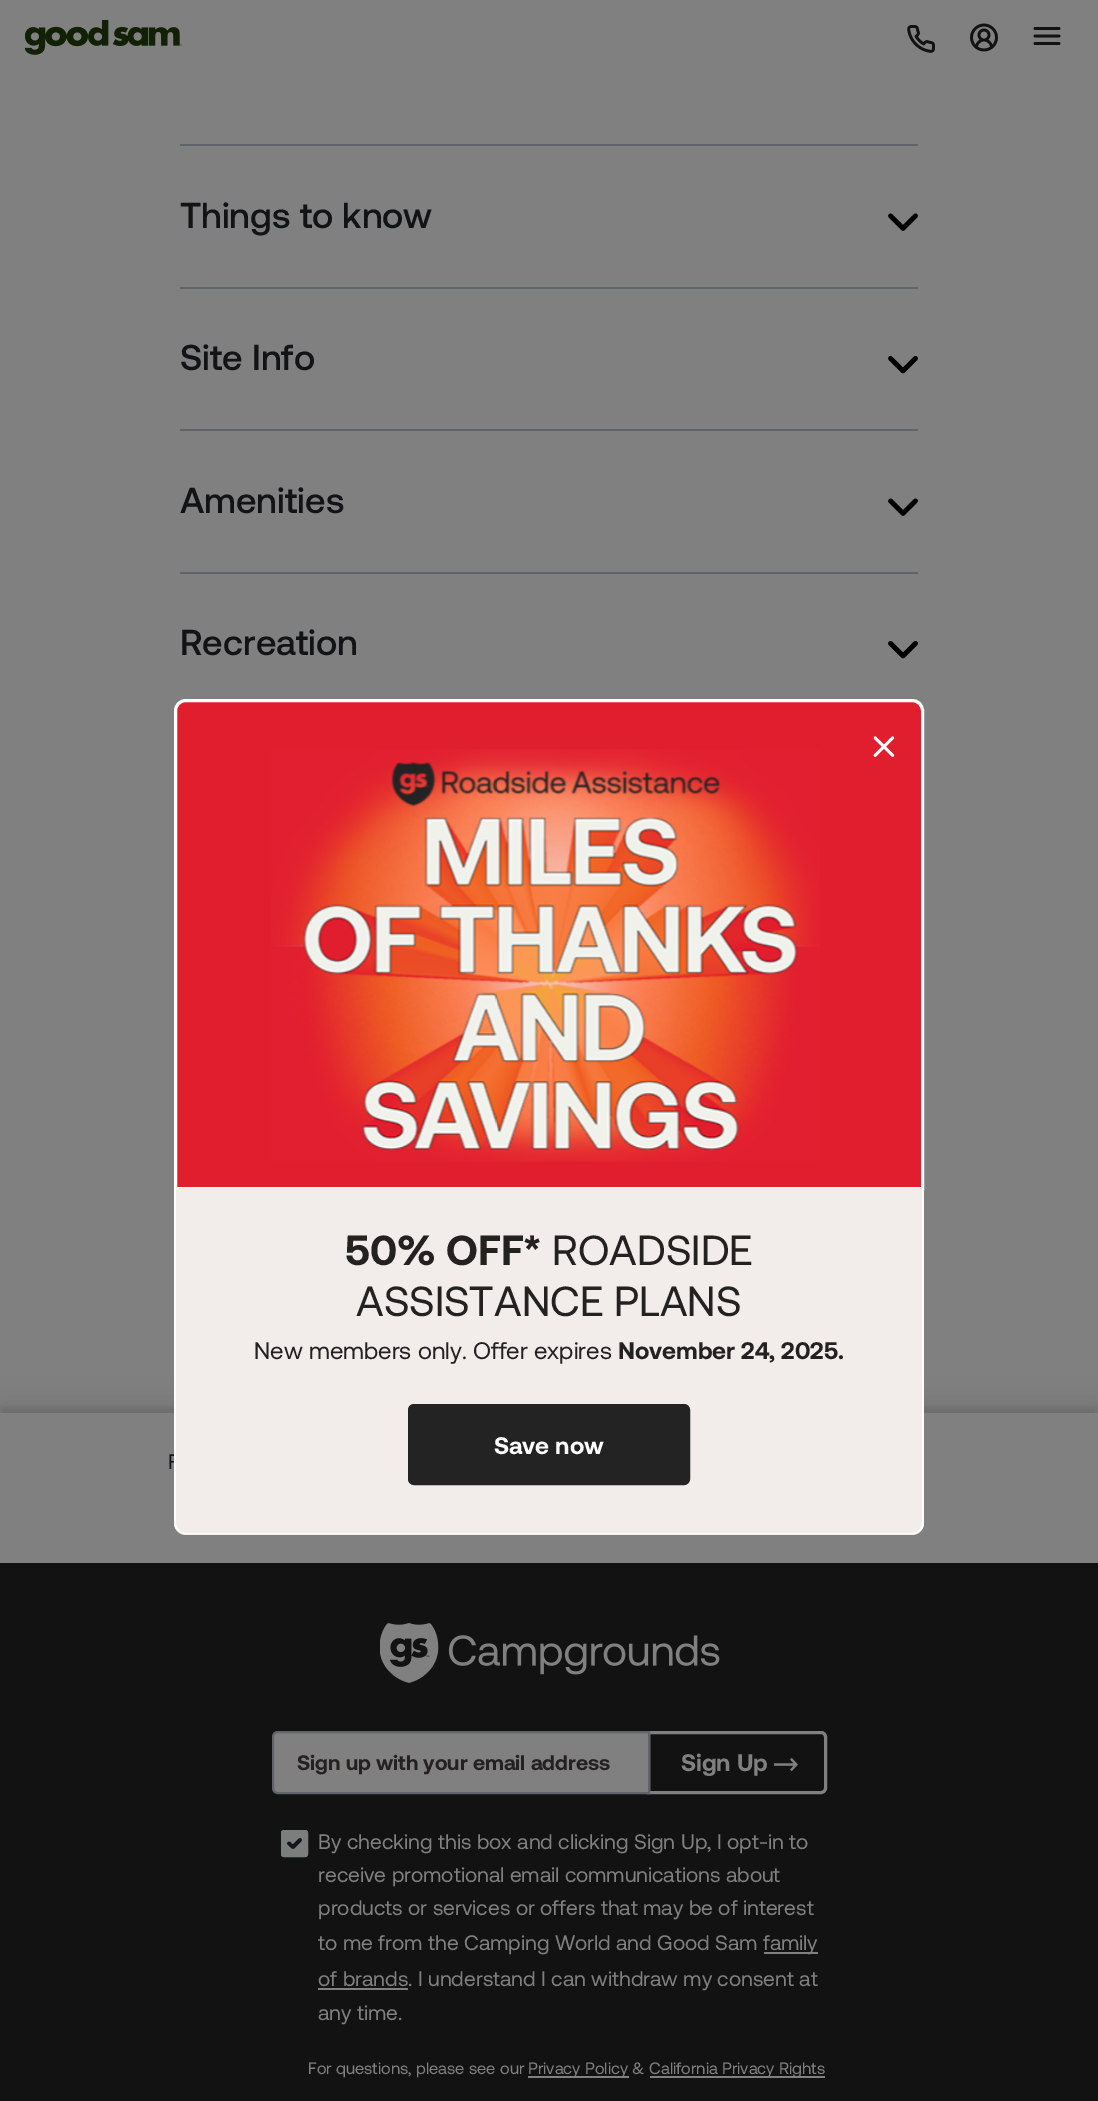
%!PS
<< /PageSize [1098 2101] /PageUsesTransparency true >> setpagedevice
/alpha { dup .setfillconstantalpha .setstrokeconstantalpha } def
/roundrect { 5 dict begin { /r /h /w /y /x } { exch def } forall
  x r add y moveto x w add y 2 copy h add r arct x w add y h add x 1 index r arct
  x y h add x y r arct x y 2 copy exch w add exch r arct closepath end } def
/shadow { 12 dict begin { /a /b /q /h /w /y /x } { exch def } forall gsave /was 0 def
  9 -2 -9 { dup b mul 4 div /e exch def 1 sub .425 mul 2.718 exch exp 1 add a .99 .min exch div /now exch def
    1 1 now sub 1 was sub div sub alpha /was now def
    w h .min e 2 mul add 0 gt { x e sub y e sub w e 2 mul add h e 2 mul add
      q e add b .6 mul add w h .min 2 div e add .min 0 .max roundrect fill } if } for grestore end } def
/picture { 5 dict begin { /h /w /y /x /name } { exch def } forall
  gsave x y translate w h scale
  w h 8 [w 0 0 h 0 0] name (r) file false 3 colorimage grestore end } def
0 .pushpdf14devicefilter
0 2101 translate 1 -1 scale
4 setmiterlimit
0.502 setgray
0 0 1098 2101 rectfill
(img1.rgb) 25 20 157 35 picture
(img2.rgb) 907 25 28 28 picture
(img3.rgb) 970 23 28 29 picture
(img4.rgb) 1033 27 28 18 picture
0.376 0.388 0.404 setrgbcolor
180 144 738 2 rectfill
180 287 738 2 rectfill
/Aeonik-Medium [36 0 0 -36 0 0] selectfont
0.067 0.075 0.082 setrgbcolor
180 228 moveto (Things to know) show
(img5.rgb) 888 213 30 18 picture
0.376 0.388 0.404 setrgbcolor
180 429 738 2 rectfill
0.067 0.075 0.082 setrgbcolor
180 370 moveto (Site Info) show
(img6.rgb) 888 356 30 18 picture
0.376 0.388 0.404 setrgbcolor
180 572 738 2 rectfill
0.067 0.075 0.082 setrgbcolor
180 513 moveto (Amenities) show
(img5.rgb) 888 498 30 18 picture
180 655 moveto (Recreation) show
(img6.rgb) 888 641 30 18 picture
0.071 setgray
0 1563 1098 538 rectfill
0 setgray
0 1404 1098 150 0 12 0.1 shadow
0 1407 1098 150 0 3 0.1 shadow
0.502 setgray
0 1413 1098 150 rectfill
/Aeonik-Regular [21 0 0 -21 0 0] selectfont
0.067 0.075 0.082 setrgbcolor
168 1469 moveto (F) show
0.882 0.118 0.176 setrgbcolor
newpath 186 700.5 moveto 912 700.5 lineto 918 700.5 922.5 705 922.5 711 curveto 922.5 1188.5 lineto 175.5 1188.5 lineto 175.5 711 lineto 175.5 705 180 700.5 186 700.5 curveto closepath gsave fill grestore
1 setgray
3 setlinewidth
stroke
(img7.rgb) 873 736 22 21 picture
(img8.rgb) 271 749 549 413 picture
0.949 0.929 0.922 setrgbcolor
newpath 174 1188 moveto 924 1188 lineto 924 1523 lineto 924 1529.5 918.5 1535 912 1535 curveto 186 1535 lineto 179.5 1535 174 1529.5 174 1523 curveto closepath fill
1 setgray
newpath 174 1188 moveto 924 1188 lineto 924 1522 lineto 924 1529 919 1534 912 1534 curveto 186 1534 lineto 179 1534 174 1529 174 1522 curveto closepath 176 1188 moveto 922 1188 lineto 922 1522 lineto 922 1528 918 1533 912 1533 curveto 186 1533 lineto 180 1533 176 1528 176 1522 curveto closepath eofill
/Aeonik-Bold [42 0 0 -42 0 0] selectfont
0.141 0.133 0.129 setrgbcolor
345 1265 moveto (50% OFF*) show
/Aeonik-Regular [42 0 0 -42 0 0] selectfont
552 1265 moveto (ROADSIDE) show
356 1316 moveto (ASSISTANCE PLANS) show
/Aeonik-Regular [24 0 0 -24 0 0] selectfont
254 1359 moveto (New members only. Offer expires) show
/Aeonik-Bold [24 0 0 -24 0 0] selectfont
618 1359 moveto (November 24, 2025.) show
0.137 setgray
409 1405 280 79 5 roundrect gsave fill grestore
2 setlinewidth
stroke
1 setgray
494 1454 moveto (Save now) show
(img9.rgb) 380 1623 340 60 picture
0.502 setgray
3 setlinewidth
newpath 648.5 1732.5 moveto 821 1732.5 lineto 823.5 1732.5 825.5 1734.5 825.5 1737 curveto 825.5 1788 lineto 825.5 1790.5 823.5 1792.5 821 1792.5 curveto 648.5 1792.5 lineto closepath stroke
newpath 278 1732 moveto 649 1732 lineto 649 1793 lineto 278 1793 lineto 275 1793 273 1791 273 1788 curveto 273 1737 lineto 273 1734 275 1732 278 1732 curveto closepath gsave fill grestore
0.376 0.388 0.404 setrgbcolor
2 setlinewidth
stroke
/Aeonik-Bold [21 0 0 -21 0 0] selectfont
0.141 0.133 0.129 setrgbcolor
297 1770 moveto (Sign up with your email address) show
/Aeonik-Bold [24 0 0 -24 0 0] selectfont
0.502 setgray
681 1771 moveto (Sign Up) show
(img10.rgb) 774 1757 24 15 picture
0.486 0.49 0.49 setrgbcolor
281 1830 27 27 3 roundrect fill
0.067 0.086 0.106 setrgbcolor
3.6 setlinewidth
1 setlinecap
1 setlinejoin
newpath 289 1843.5 moveto 293 1847 lineto 300 1840 lineto stroke
0.486 0.49 0.49 setrgbcolor
2 setlinewidth
0 setlinecap
0 setlinejoin
282 1831 25 25 2 roundrect stroke
/Aeonik-Regular [21 0 0 -21 0 0] selectfont
0.502 setgray
318 1849 moveto (By checking this box and clicking Sign Up, I opt-in to) show
318 1882 moveto (receive promotional email communications about) show
318 1915 moveto (products or services or offers that may be of interest) show
318 1950 moveto (to me from the Camping World and Good Sam) show
764 1952 54 2 rectfill
763 1950 moveto (family) show
318 1988 90 2 rectfill
318 1986 moveto (of brands. I understand I can withdraw my consent at) show
318 2020 moveto (any time.) show
/Aeonik-Regular [16.5 0 0 -16.5 0 0] selectfont
308 2074 moveto (For questions, please see our) show
528 2076 101 2 rectfill
528 2074 moveto (Privacy Policy &) show
650 2076 175 2 rectfill
649 2074 moveto (California Privacy Rights) show
.poppdf14devicefilter showpage
